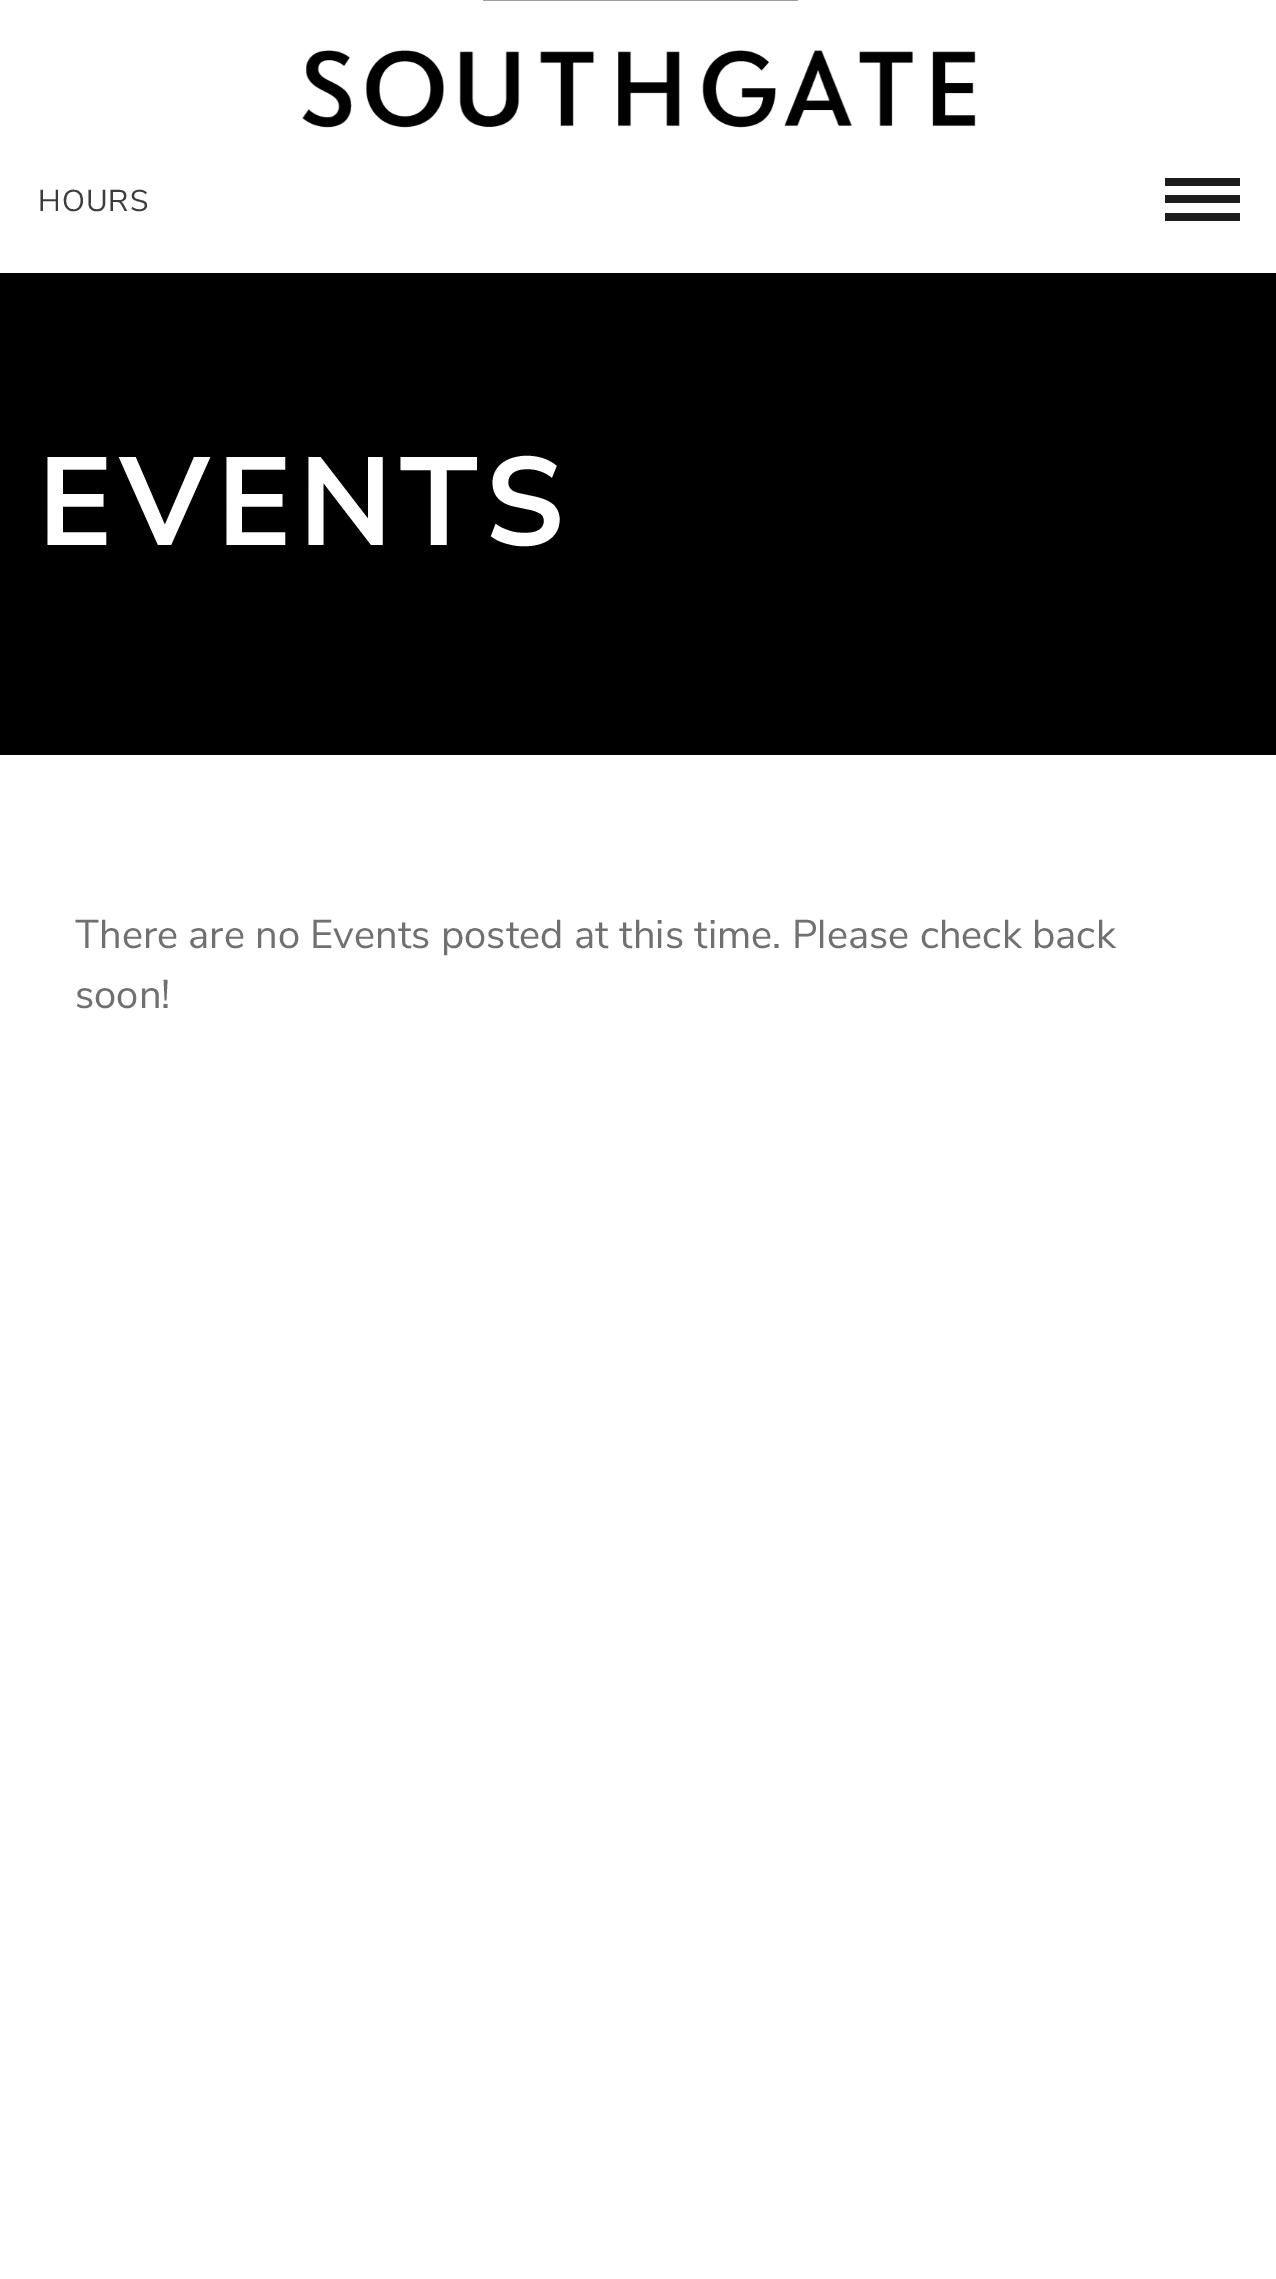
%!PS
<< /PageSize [1276 2279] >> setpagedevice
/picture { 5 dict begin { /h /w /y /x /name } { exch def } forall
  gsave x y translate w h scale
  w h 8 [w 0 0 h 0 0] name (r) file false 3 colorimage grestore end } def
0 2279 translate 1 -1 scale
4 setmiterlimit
1 setgray
0 0 1276 2279 rectfill
0.62 setgray
483 0 315 1 rectfill
(img1.rgb) 302 50 674 78 picture
/NunitoSans-Regular [30 0 0 -30 0 0] selectfont
0.235 setgray
38 211 moveto 1 0 (HOURS) ashow
0.11 setgray
1165 178 75 8 rectfill
1165 195 75 8 rectfill
1165 213 75 8 rectfill
0 setgray
0 273 1276 482 rectfill
/NunitoSans-Bold [125 0 0 -125 0 0] selectfont
1 setgray
38 545 moveto 7.5 0 (EVENTS) ashow
/NunitoSans-Regular [40 0 0 -40 0 0] selectfont
0.439 setgray
75 948 moveto (There are no Events posted at this time. Please check back) show
75 1008 moveto (soon!) show
showpage
